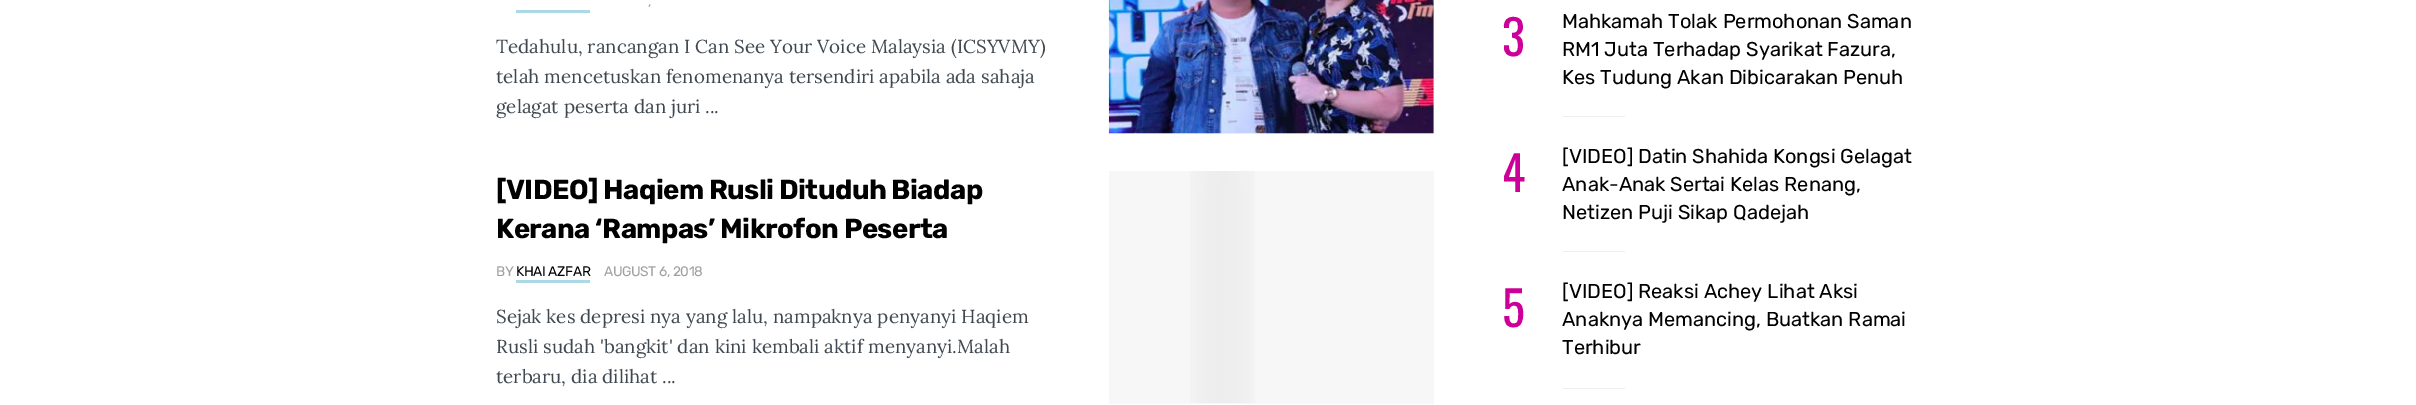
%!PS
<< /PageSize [2416 405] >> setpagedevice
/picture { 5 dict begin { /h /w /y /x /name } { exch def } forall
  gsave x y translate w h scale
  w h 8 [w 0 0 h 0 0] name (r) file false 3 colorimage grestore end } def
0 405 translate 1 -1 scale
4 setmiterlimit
1 setgray
0 0 2416 405 rectfill
/Rubik-Light [13.75 0 0 -13.75 0 0] selectfont
0.627 setgray
648 6 moveto -0.4 0 (,) ashow
0.678 0.847 0.902 setrgbcolor
516 10 74 3 rectfill
/Lora-Regular [18.75 0 0 -18.75 0 0] selectfont
0.247 0.282 0.314 setrgbcolor
496 53 moveto (Tedahulu, rancangan I Can See Your Voice Malaysia \(ICSYVMY\)) show
496 83 moveto (telah mencetuskan fenomenanya tersendiri apabila ada sahaja) show
496 113 moveto (gelagat peserta dan juri ...) show
0.969 setgray
1109 0 325 134 rectfill
(img1.rgb) 1108 0 326 134 picture
/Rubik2-Light [27.5 0 0 -27.5 0 0] selectfont
0 setgray
496 199 moveto -0.55 0 ([VIDEO] Haqiem Rusli Dituduh Biadap) ashow
496 238 moveto -0.55 0 (Kerana ‘Rampas’ Mikrofon Peserta) ashow
/Rubik-Light [13.75 0 0 -13.75 0 0] selectfont
0.627 setgray
496 276 moveto -0.4 0 (BY) ashow
0 setgray
516 276 moveto -0.4 0 (KHAI AZFAR) ashow
0.678 0.847 0.902 setrgbcolor
516 280 74 3 rectfill
0.627 setgray
604 276 moveto -0.4 0 (AUGUST 6, 2018) ashow
/Lora-Regular [18.75 0 0 -18.75 0 0] selectfont
0.247 0.282 0.314 setrgbcolor
496 323 moveto (Sejak kes depresi nya yang lalu, nampaknya penyanyi Haqiem) show
496 353 moveto (Rusli sudah 'bangkit' dan kini kembali aktif menyanyi.Malah) show
496 383 moveto (terbaru, dia dilihat ...) show
0.969 setgray
1109 171 325 233 rectfill
(img2.rgb) 1190 171 65 232 picture
/Oswald-Regular [48 0 0 -48 0 0] selectfont
0.8 0 0.6 setrgbcolor
1502 56 moveto (3) show
/Rubik-Light [20 0 0 -20 0 0] selectfont
0 setgray
1562 28 moveto (Mahkamah Tolak Permohonan Saman) show
1562 56 moveto (RM1 Juta Terhadap Syarikat Fazura,) show
1562 84 moveto (Kes Tudung Akan Dibicarakan Penuh) show
0.933 setgray
1563 116 62 1 rectfill
/Oswald-Regular [48 0 0 -48 0 0] selectfont
0.8 0 0.6 setrgbcolor
1502 192 moveto (4) show
/Rubik-Light [20 0 0 -20 0 0] selectfont
0 setgray
1562 163 moveto ([VIDEO] Datin Shahida Kongsi Gelagat) show
1562 191 moveto (Anak-Anak Sertai Kelas Renang,) show
1562 219 moveto (Netizen Puji Sikap Qadejah) show
0.933 setgray
1563 251 62 1 rectfill
/Oswald-Regular [48 0 0 -48 0 0] selectfont
0.8 0 0.6 setrgbcolor
1502 327 moveto (5) show
/Rubik-Light [20 0 0 -20 0 0] selectfont
0 setgray
1562 298 moveto ([VIDEO] Reaksi Achey Lihat Aksi) show
1562 326 moveto (Anaknya Memancing, Buatkan Ramai) show
1562 354 moveto (Terhibur) show
0.933 setgray
1563 388 62 1 rectfill
showpage
